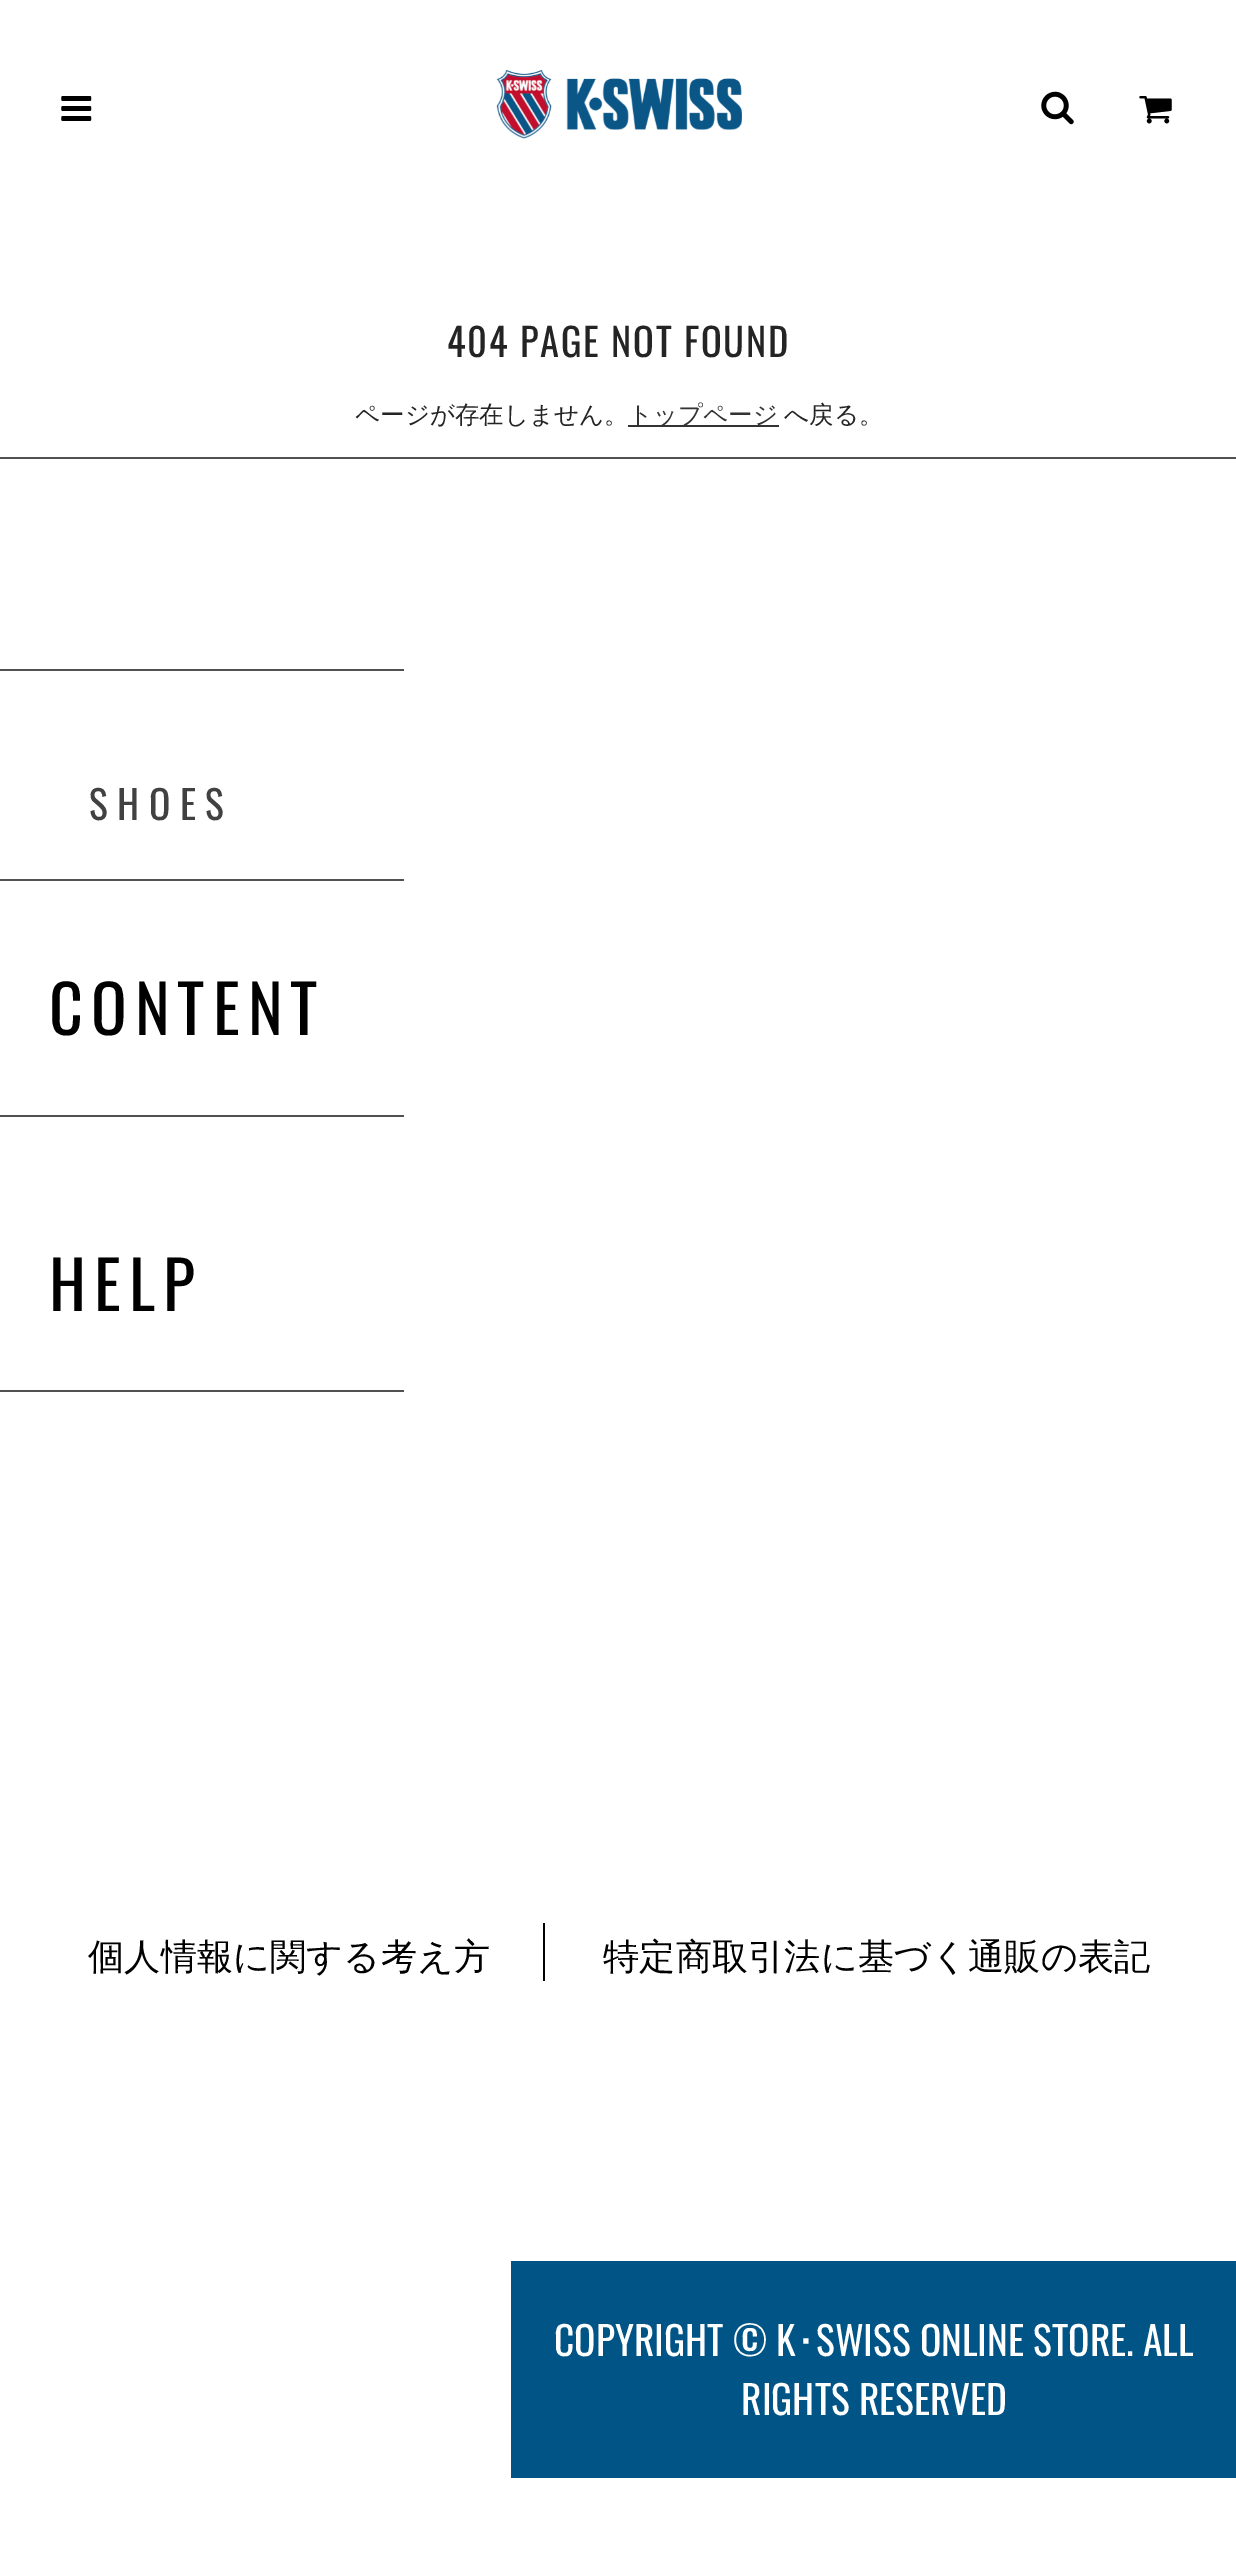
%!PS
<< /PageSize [1236 2575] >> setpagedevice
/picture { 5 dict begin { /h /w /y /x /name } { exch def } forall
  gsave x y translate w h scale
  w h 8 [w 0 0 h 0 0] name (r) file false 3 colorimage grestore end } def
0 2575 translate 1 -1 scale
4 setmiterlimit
1 setgray
0 0 1236 2575 rectfill
(img1.rgb) 61 96 31 25 picture
(img2.rgb) 496 70 246 69 picture
(img3.rgb) 1041 91 33 34 picture
(img4.rgb) 1139 96 33 28 picture
/Oswald-Regular [38.5 0 0 -38.5 0 0] selectfont
0.141 setgray
447 357 moveto 1.75 0 (404 PAGE NOT FOUND) ashow
/WenQuanYiZenHei-Medium [24.5 0 0 -24.5 0 0] selectfont
355 423 moveto (ページが存在しません。) show
0.2 setgray
628 425 151 2 rectfill
628 423 moveto (トップページ) show
0.141 setgray
784 423 moveto (へ戻る。) show
0.318 setgray
0 457 1236 2 rectfill
0 669 404 2 rectfill
0 879 404 2 rectfill
/Oswald-Regular [39.5 0 0 -39.5 0 0] selectfont
0.255 setgray
89 820 moveto 9.5 0 (SHOES) ashow
0.318 setgray
0 1115 404 2 rectfill
/Oswald-Regular [66 0 0 -66 0 0] selectfont
0 setgray
49 1035 moveto 8 0 (CONTENT) ashow
0.318 setgray
0 1390 404 2 rectfill
0 setgray
49 1311 moveto 8 0 (HELP) ashow
543 1923 2 58 rectfill
/WenQuanYiZenHei-Medium [36.25 0 0 -36.25 0 0] selectfont
88 1969 moveto (個人情報に関する考え方) show
603 1969 moveto (特定商取引法に基づく通販の表記) show
0 0.333 0.525 setrgbcolor
511 2261 725 217 rectfill
/Oswald-Regular [39.5 0 0 -39.5 0 0] selectfont
1 setgray
554 2356 moveto (COPYRIGHT © K) show
/IPAPGothic-Regular [39.5 0 0 -39.5 0 0] selectfont
796 2356 moveto (･) show
/Oswald-Regular [39.5 0 0 -39.5 0 0] selectfont
816 2356 moveto (SWISS ONLINE STORE. ALL) show
741 2415 moveto (RIGHTS RESERVED) show
showpage
